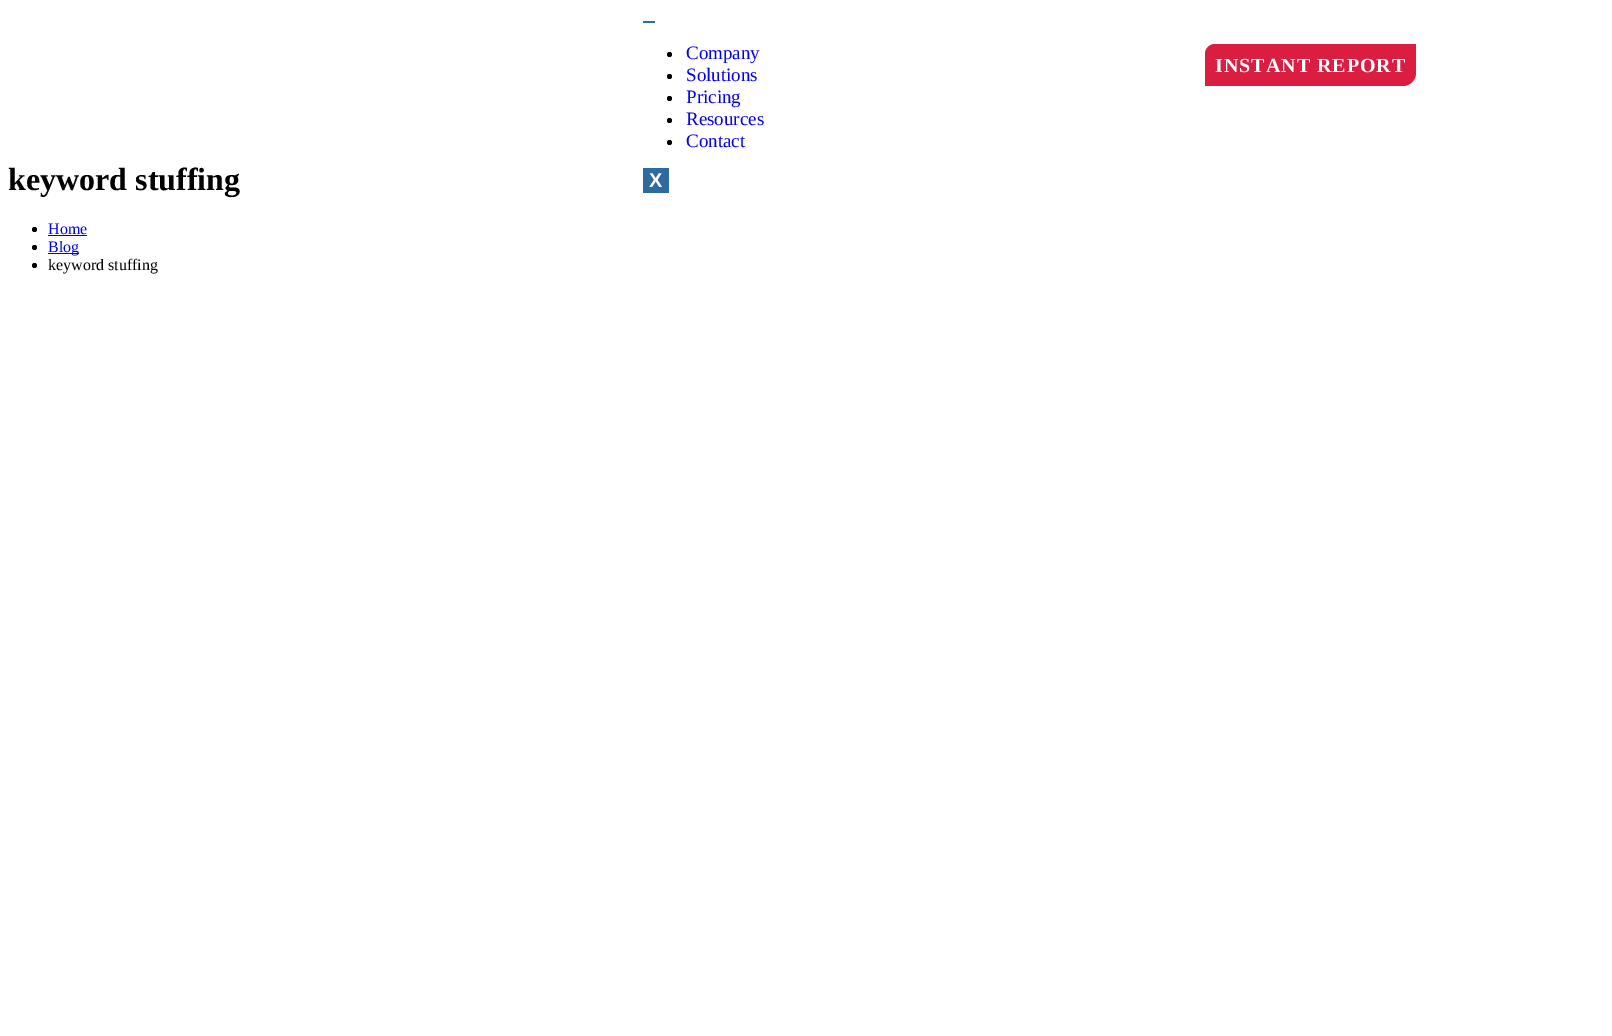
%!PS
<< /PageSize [1612 1036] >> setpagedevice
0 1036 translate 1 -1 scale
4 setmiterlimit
1 setgray
0 0 1612 1036 rectfill
0.176 0.416 0.624 setrgbcolor
643 21 12 2 rectfill
0 setgray
newpath 669.5 54.5 2.5 0 360 arc closepath fill
/LiberationSerif-Regular [19 0 0 -19 0 0] selectfont
0 0 0.933 setrgbcolor
686 59 moveto (Company) show
0 setgray
newpath 669.5 76.5 2.5 0 360 arc closepath fill
0 0 0.933 setrgbcolor
686 81 moveto (Solutions) show
0 setgray
newpath 669.5 98.5 2.5 0 360 arc closepath fill
0 0 0.933 setrgbcolor
686 103 moveto (Pricing) show
0 setgray
newpath 669.5 120.5 2.5 0 360 arc closepath fill
0 0 0.933 setrgbcolor
686 125 moveto (Resources) show
0 setgray
newpath 669.5 142.5 2.5 0 360 arc closepath fill
0 0 0.933 setrgbcolor
686 147 moveto (Contact) show
0.176 0.416 0.624 setrgbcolor
643 168 26 25 rectfill
/LiberationSans-Bold [20 0 0 -20 0 0] selectfont
1 setgray
649 187 moveto 1 0 (X) ashow
0.859 0.114 0.259 setrgbcolor
newpath 1215 44 moveto 1416 44 lineto 1416 73 lineto 1416 80 1410 86 1403 86 curveto 1205 86 lineto 1205 54 lineto 1205 48.5 1209.5 44 1215 44 curveto closepath fill
/LiberationSerif-Bold [20 0 0 -20 0 0] selectfont
1 setgray
1215 72 moveto 1 0 (INSTANT REPORT) ashow
/LiberationSerif-Bold [32 0 0 -32 0 0] selectfont
0 setgray
8 190 moveto (keyword stuffing) show
newpath 34.5 229.5 2.5 0 360 arc closepath fill
/LiberationSerif-Regular [16 0 0 -16 0 0] selectfont
0 0 0.933 setrgbcolor
48 234 moveto (Home) show
48 235 39 1 rectfill
0 setgray
newpath 34.5 247.5 2.5 0 360 arc closepath fill
0 0 0.933 setrgbcolor
48 253 31 1 rectfill
48 252 moveto (Blog) show
0 setgray
newpath 34.5 265.5 2.5 0 360 arc closepath fill
48 270 moveto (keyword stuffing) show
showpage
